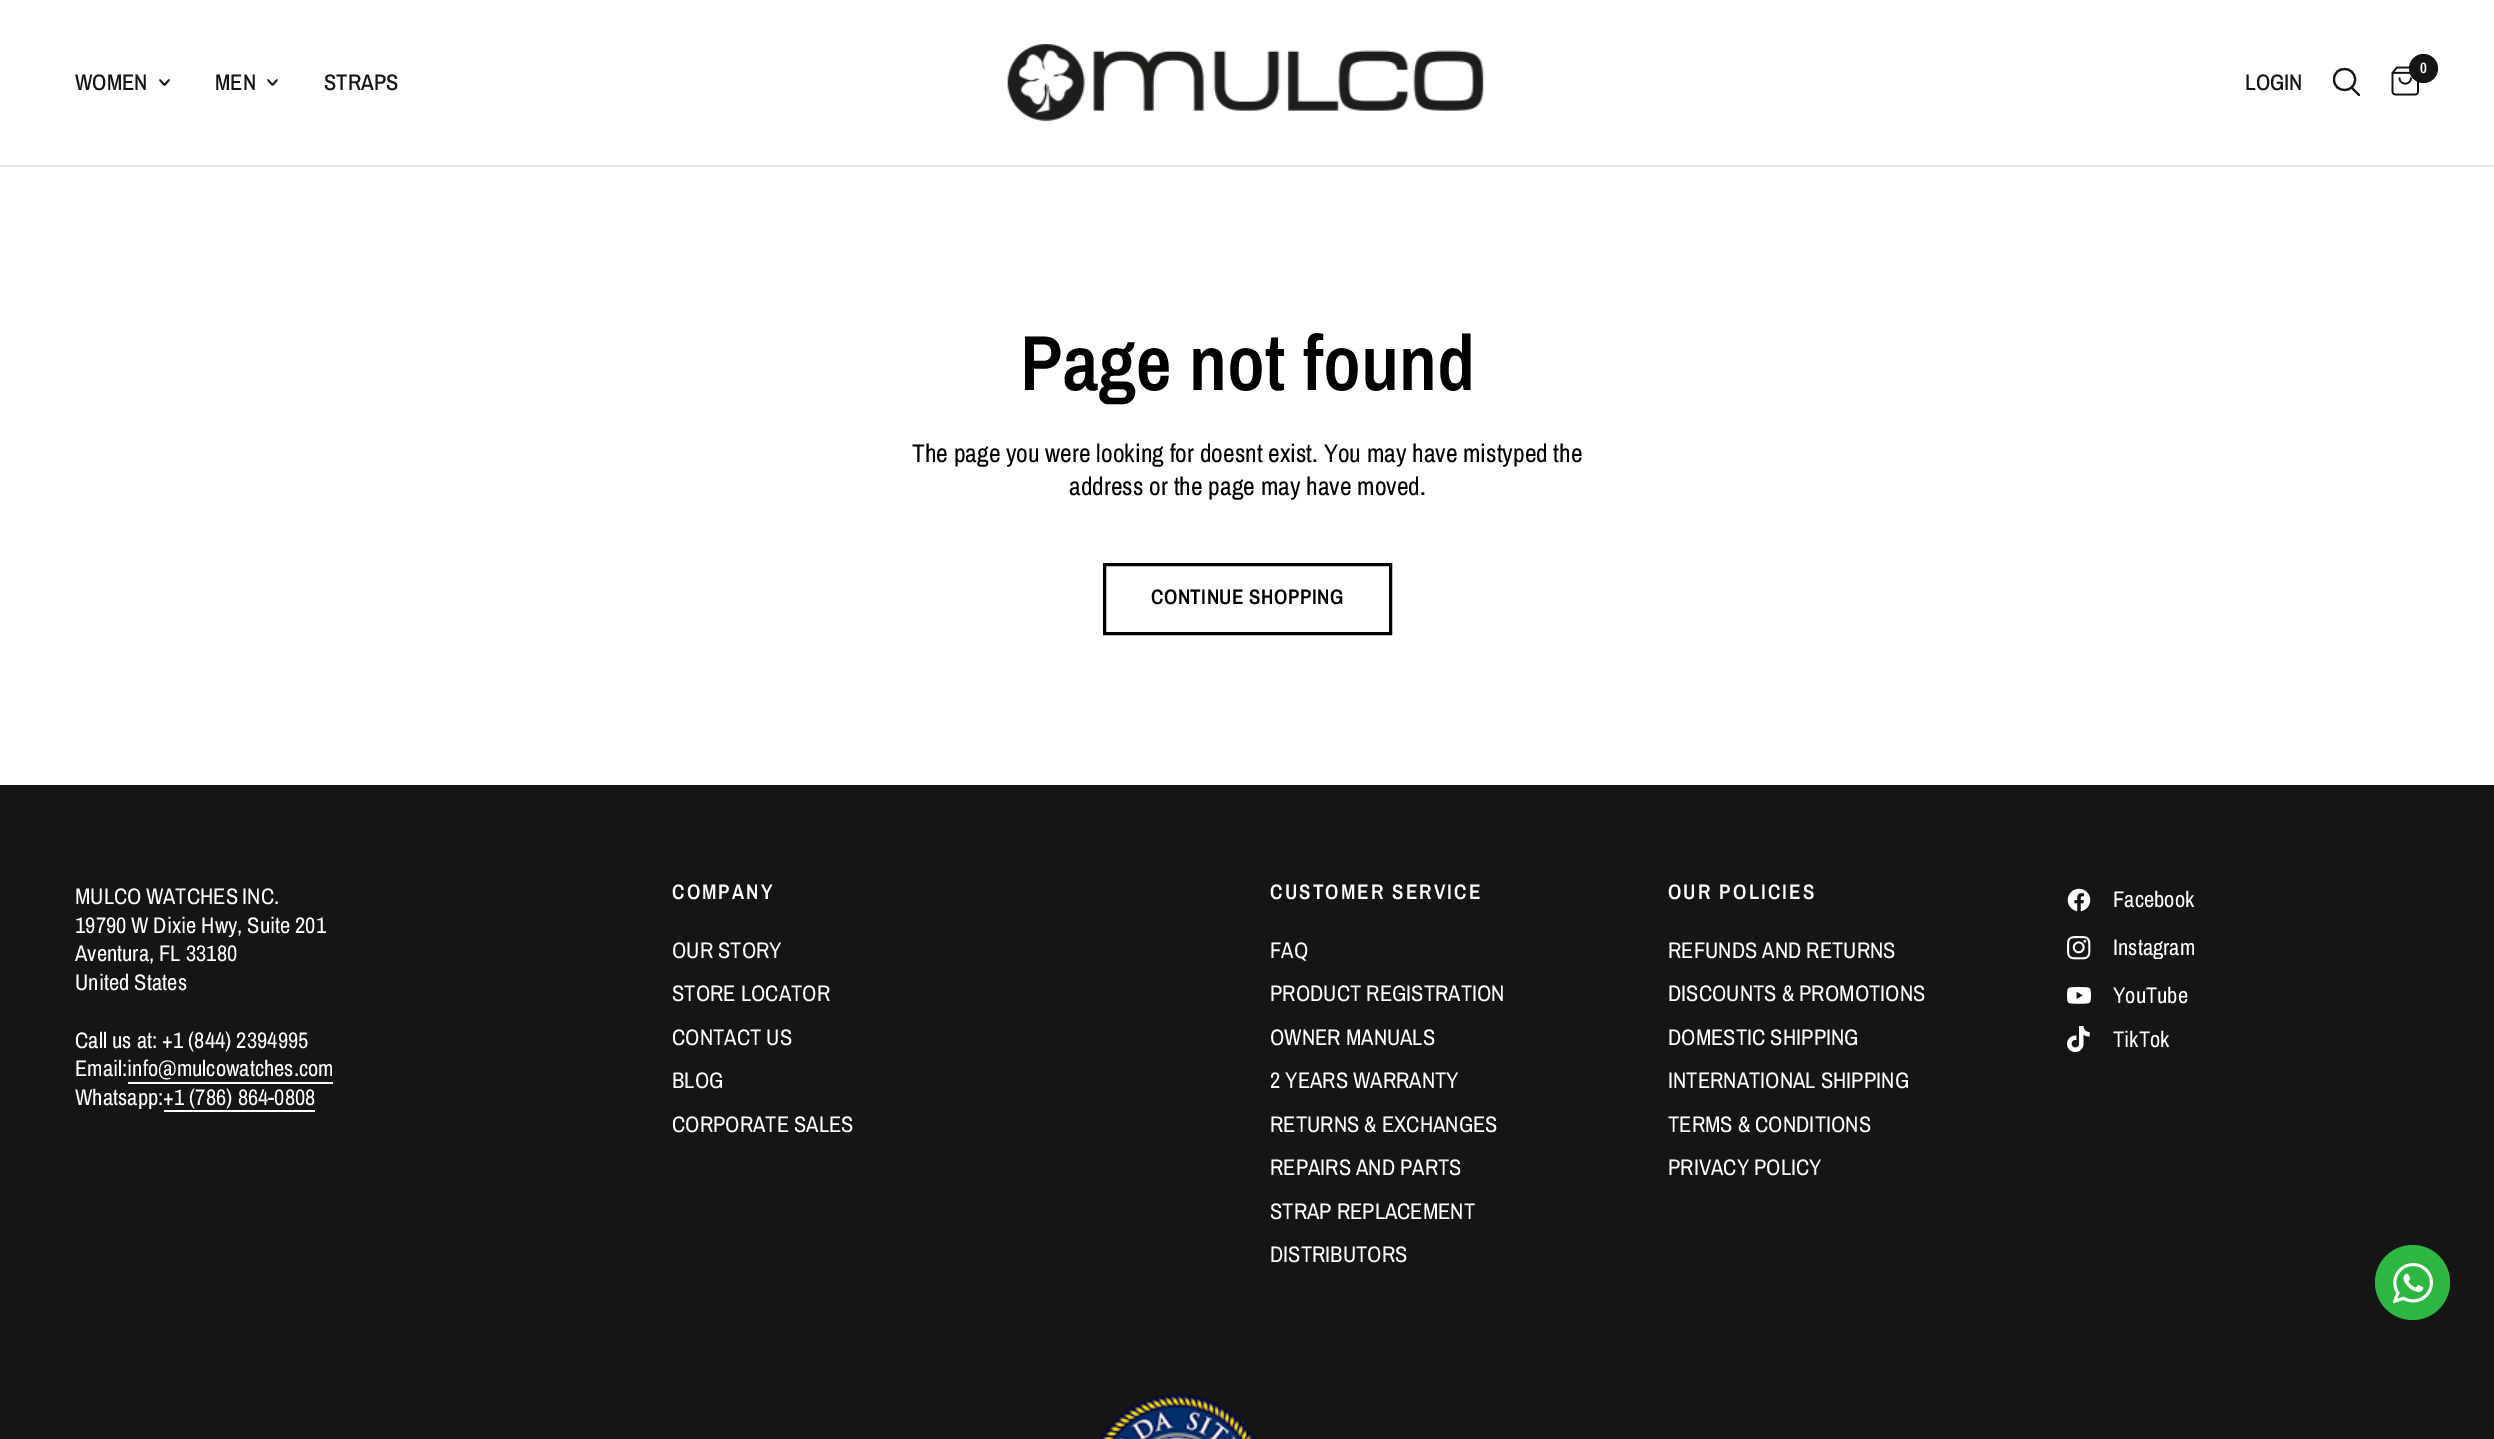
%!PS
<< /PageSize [2494 1439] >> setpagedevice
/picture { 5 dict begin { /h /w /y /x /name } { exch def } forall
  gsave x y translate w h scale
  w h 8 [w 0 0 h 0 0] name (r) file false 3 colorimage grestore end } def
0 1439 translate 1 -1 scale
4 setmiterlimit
1 setgray
0 0 2494 1439 rectfill
0.886 setgray
0 165 2494 2 rectfill
/ArchivoNarrow-Medium [22.5 0 0 -22.5 0 0] selectfont
0.082 setgray
75 90 moveto (WOMEN) show
1.7 setlinewidth
1 setlinecap
1 setlinejoin
newpath 169 80 moveto 164.5 85 lineto 160 80 lineto stroke
215 90 moveto (MEN) show
newpath 277 80 moveto 272.5 85 lineto 268 80 lineto stroke
324 90 moveto (STRAPS) show
(img1.rgb) 1007 44 478 78 picture
2245 90 moveto (LOGIN) show
2.1 setlinewidth
newpath 2352 88 moveto 2359 95 lineto 2355 79.5 moveto 2355 93.5 2334 93.5 2334 79.5 curveto 2334 65.5 2355 65.5 2355 79.5 curveto closepath stroke
(img2.rgb) 2391 66 28 30 picture
newpath 2423.5 68.5 14.5 0 360 arc closepath fill
/ArchivoNarrow-SemiBold [15 0 0 -15 0 0] selectfont
1 setgray
2420 73 moveto (0) show
/ArchivoNarrow-SemiBold [78 0 0 -78 0 0] selectfont
0 setgray
1020 390 moveto (Page not found) show
/ArchivoNarrow-Regular [25.5 0 0 -25.5 0 0] selectfont
912 462 moveto -0.1 0 32 (The page you were looking for doesnt exist. You may have mistyped the) widthshow
1069 495 moveto (address or the page may have moved.) show
3 setlinewidth
0 setlinecap
0 setlinejoin
1104.5 564.5 286 69 rectstroke
/ArchivoNarrow-SemiBold [21 0 0 -21 0 0] selectfont
1151 604 moveto 0.4 0 (CONTINUE SHOPPING) ashow
0.082 setgray
0 785 2494 654 rectfill
/ArchivoNarrow-Regular [22.5 0 0 -22.5 0 0] selectfont
1 setgray
75 904 moveto -1 0 32 (MULCO WATCHES INC.) widthshow
75 933 moveto -0.25 0 32 (19790 W Dixie Hwy, Suite 201) widthshow
75 961 moveto (Aventura, FL 33180) show
75 990 moveto (United States) show
75 1048 moveto (Call us at: +1 \(844\) 2394995) show
75 1076 moveto (Email:info@mulcowatches.com) show
128 1082 205 2 rectfill
75 1105 moveto (Whatsapp:+1 \(786\) 864-0808) show
164 1110 151 2 rectfill
/ArchivoNarrow-SemiBold [21 0 0 -21 0 0] selectfont
672 899 moveto 2.1 0 (COMPANY) ashow
/ArchivoNarrow-Regular [22.5 0 0 -22.5 0 0] selectfont
672 958 moveto (OUR STORY) show
672 1001 moveto (STORE LOCATOR) show
672 1045 moveto (CONTACT US) show
672 1088 moveto (BLOG) show
672 1132 moveto (CORPORATE SALES) show
/ArchivoNarrow-SemiBold [21 0 0 -21 0 0] selectfont
1270 899 moveto 2.1 0 (CUSTOMER SERVICE) ashow
/ArchivoNarrow-Regular [22.5 0 0 -22.5 0 0] selectfont
1270 958 moveto (FAQ) show
1270 1001 moveto (PRODUCT REGISTRATION) show
gsave
1271 933 352 341 rectclip
1270 1045 moveto (OWNER MANUALS) show
1270 1088 moveto (2 YEARS WARRANTY) show
grestore
1270 1132 moveto (RETURNS & EXCHANGES) show
1270 1175 moveto (REPAIRS AND PARTS) show
1270 1219 moveto (STRAP REPLACEMENT) show
1270 1262 moveto (DISTRIBUTORS) show
/ArchivoNarrow-SemiBold [21 0 0 -21 0 0] selectfont
1668 899 moveto 2.1 0 (OUR POLICIES) ashow
/ArchivoNarrow-Regular [22.5 0 0 -22.5 0 0] selectfont
1668 958 moveto (REFUNDS AND RETURNS) show
1668 1001 moveto (DISCOUNTS & PROMOTIONS) show
1668 1045 moveto (DOMESTIC SHIPPING) show
1668 1088 moveto (INTERNATIONAL SHIPPING) show
1668 1132 moveto (TERMS & CONDITIONS) show
1668 1175 moveto (PRIVACY POLICY) show
(img3.rgb) 2067 888 24 24 picture
2113 907 moveto (Facebook) show
(img4.rgb) 2067 936 24 24 picture
2113 955 moveto (Instagram) show
(img5.rgb) 2067 987 24 17 picture
2113 1003 moveto (YouTube) show
(img6.rgb) 2067 1026 23 27 picture
2113 1047 moveto (TikTok) show
(img7.rgb) 1099 1393 157 46 picture
0.176 0.718 0.259 setrgbcolor
newpath 2412.5 1282.5 37.5 0 360 arc closepath fill
(img8.rgb) 2393 1263 40 41 picture
showpage
